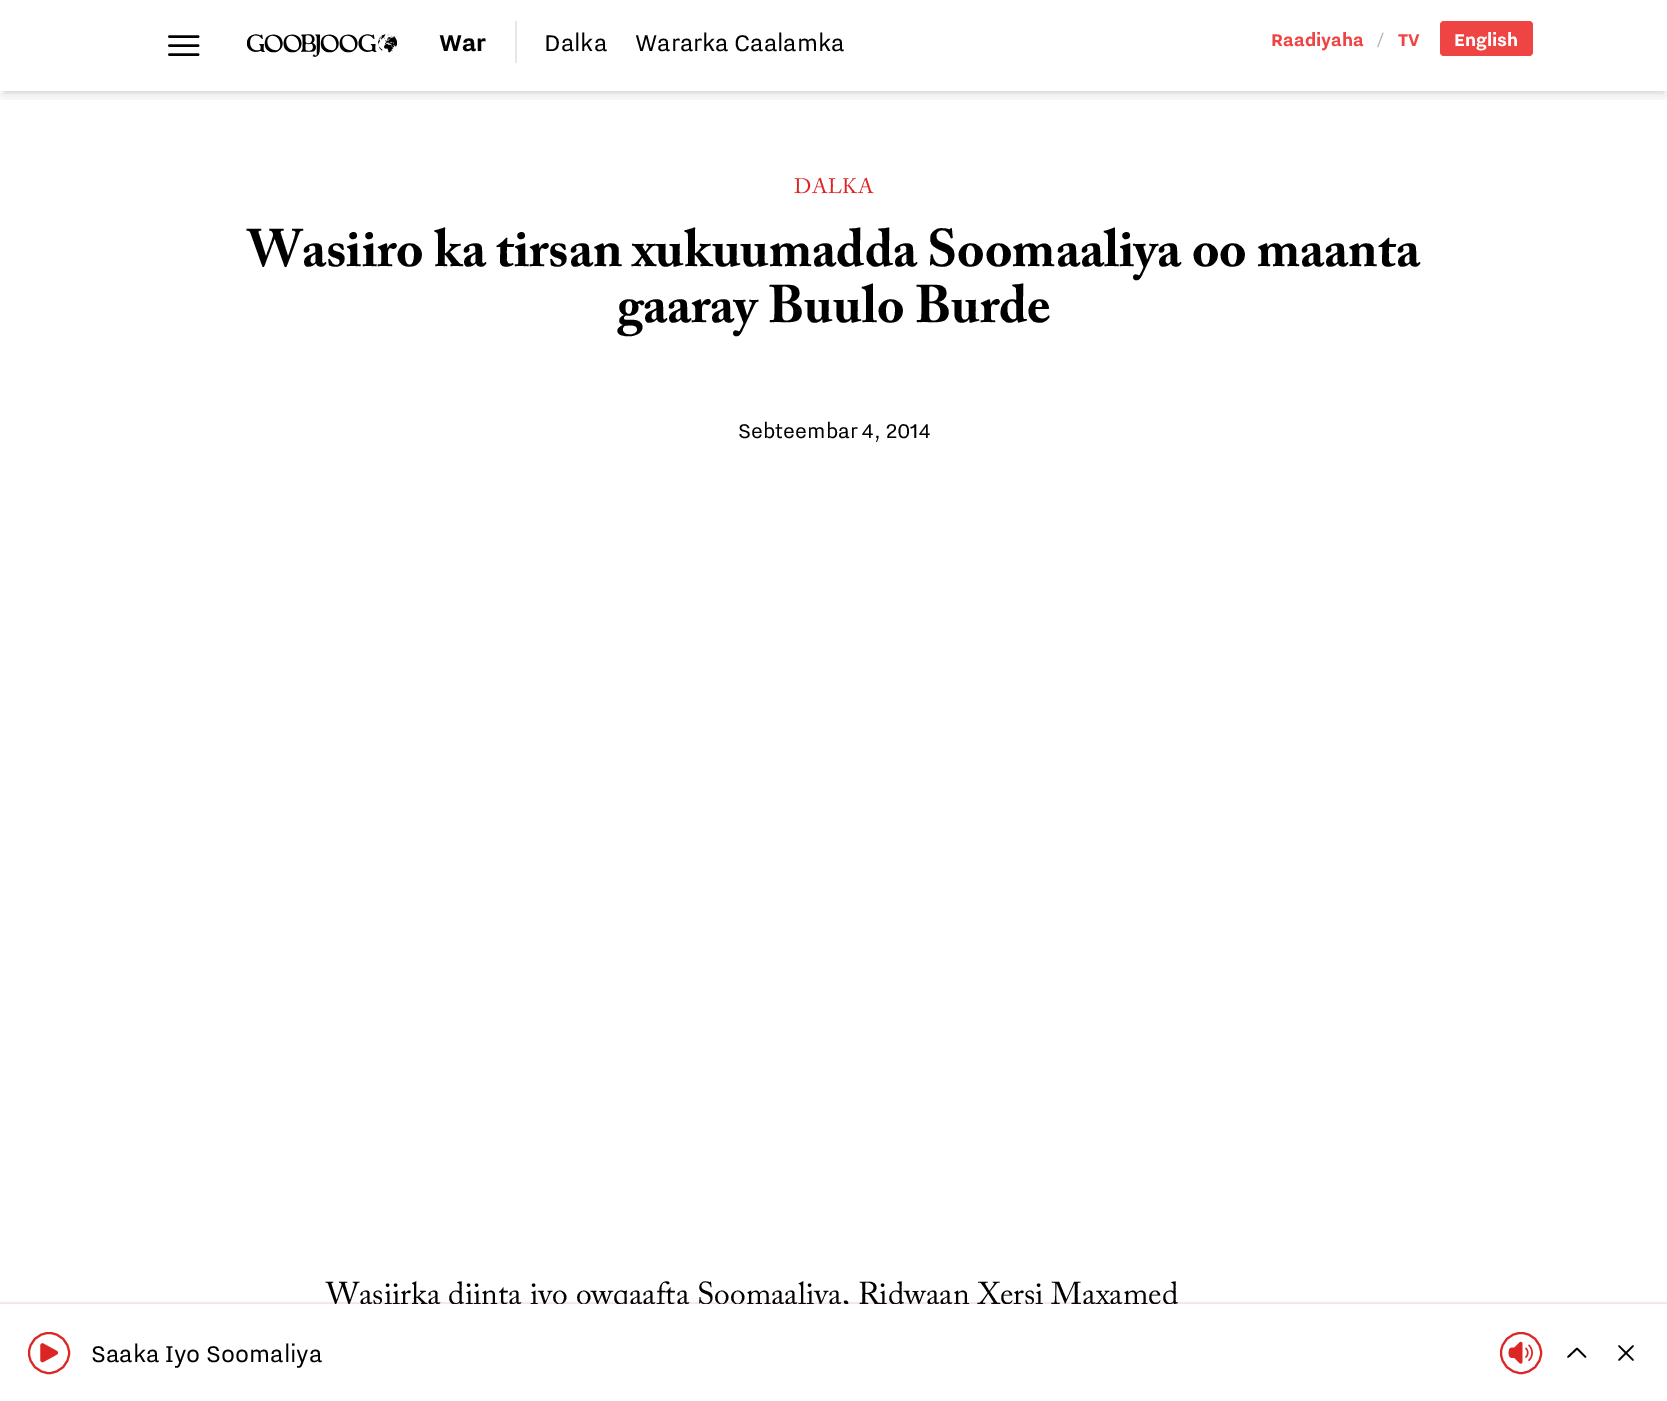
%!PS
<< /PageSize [1667 1401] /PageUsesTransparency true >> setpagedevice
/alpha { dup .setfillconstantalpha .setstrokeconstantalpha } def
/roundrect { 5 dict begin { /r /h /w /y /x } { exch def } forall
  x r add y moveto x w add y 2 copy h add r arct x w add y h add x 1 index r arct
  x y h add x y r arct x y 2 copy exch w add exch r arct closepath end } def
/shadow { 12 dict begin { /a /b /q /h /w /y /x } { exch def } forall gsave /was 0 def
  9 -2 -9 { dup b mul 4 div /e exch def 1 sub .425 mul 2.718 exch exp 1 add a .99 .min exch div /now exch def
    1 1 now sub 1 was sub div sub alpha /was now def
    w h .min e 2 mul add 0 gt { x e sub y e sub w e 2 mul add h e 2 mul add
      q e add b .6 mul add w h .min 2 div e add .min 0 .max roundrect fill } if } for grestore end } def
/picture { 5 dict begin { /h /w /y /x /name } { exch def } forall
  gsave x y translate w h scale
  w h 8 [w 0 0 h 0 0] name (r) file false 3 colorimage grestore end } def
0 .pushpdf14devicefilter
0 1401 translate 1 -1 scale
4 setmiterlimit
1 setgray
0 0 1667 1401 rectfill
gsave
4 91 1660 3 rectclip
0 setgray
4 7 1660 84 0 3.5 0.1 shadow
grestore
gsave
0 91 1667 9 rectclip
0 setgray
2 9 1664 87 0 5 0.1 shadow
grestore
0 setgray
2.6 setlinewidth
1 setlinecap
1 setlinejoin
newpath 169.5 36.5 moveto 198 36.5 lineto 169.5 45.5 moveto 198 45.5 lineto 169.5 54.5 moveto 198 54.5 lineto stroke
(img1.rgb) 247 34 150 23 picture
0.902 setgray
515 21 2 42 rectfill
/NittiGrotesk-Bold [28 0 0 -28 0 0] selectfont
0 setgray
439 51 moveto (War) show
/NittiGrotesk-Regular [28 0 0 -28 0 0] selectfont
544 51 moveto (Dalka) show
635 51 moveto (Wararka Caalamka) show
/NittiGrotesk-Bold [21 0 0 -21 0 0] selectfont
0.937 0.267 0.267 setrgbcolor
1271 46 moveto (Raadiyaha) show
/NittiGrotesk-Regular [21 0 0 -21 0 0] selectfont
0.702 setgray
1377 46 moveto (/) show
/NittiGrotesk-Bold [21 0 0 -21 0 0] selectfont
0.937 0.267 0.267 setrgbcolor
1398 46 moveto (TV) show
1440 21 93 35 4 roundrect fill
1 setgray
1454 46 moveto (English) show
/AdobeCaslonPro-Regular [21 0 0 -21 0 0] selectfont
0.863 0.149 0.149 setrgbcolor
794 193 moveto 0.5 0 (DALKA) ashow
/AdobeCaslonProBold-Bold [52.5 0 0 -52.5 0 0] selectfont
0 setgray
247 266 moveto (Wasiiro ka tirsan xukuumadda Soomaaliya oo maanta) show
617 322 moveto (gaaray Buulo Burde) show
/NittiGrotesk-Regular [24.5 0 0 -24.5 0 0] selectfont
738 438 moveto (Sebteembar 4, 2014) show
/AdobeCaslonPro-Regular [31.5 0 0 -31.5 0 0] selectfont
326 1304 moveto (Wasiirka diinta iyo owqaafta Soomaaliya, Ridwaan Xersi Maxamed) show
0.937 0.267 0.267 setrgbcolor
0 1306 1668 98 0 2.5 0.5 shadow
0.05 alpha
0.067 0.094 0.153 setrgbcolor
2 setlinewidth
0 setlinecap
0 setlinejoin
-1 1303 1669 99 rectstroke
1 alpha
1 setgray
0 1304 1667 97 rectfill
0.863 0.149 0.149 setrgbcolor
newpath 49 1353 20 0 360 arc closepath stroke
(img2.rgb) 40 1343 19 20 picture
/NittiGrotesk-Regular [28 0 0 -28 0 0] selectfont
0 setgray
91 1362 moveto (Saaka Iyo Soomaliya) show
0.863 0.149 0.149 setrgbcolor
newpath 1521 1353 20 0 360 arc closepath stroke
(img3.rgb) 1508 1341 25 23 picture
0 setgray
1.7 setlinewidth
1 setlinecap
1 setlinejoin
newpath 1568 1357 moveto 1577 1348.5 lineto 1585.5 1357 lineto stroke
newpath 1619 1360 moveto 1633 1346 lineto 1619 1346 moveto 1633 1360 lineto stroke
.poppdf14devicefilter showpage
